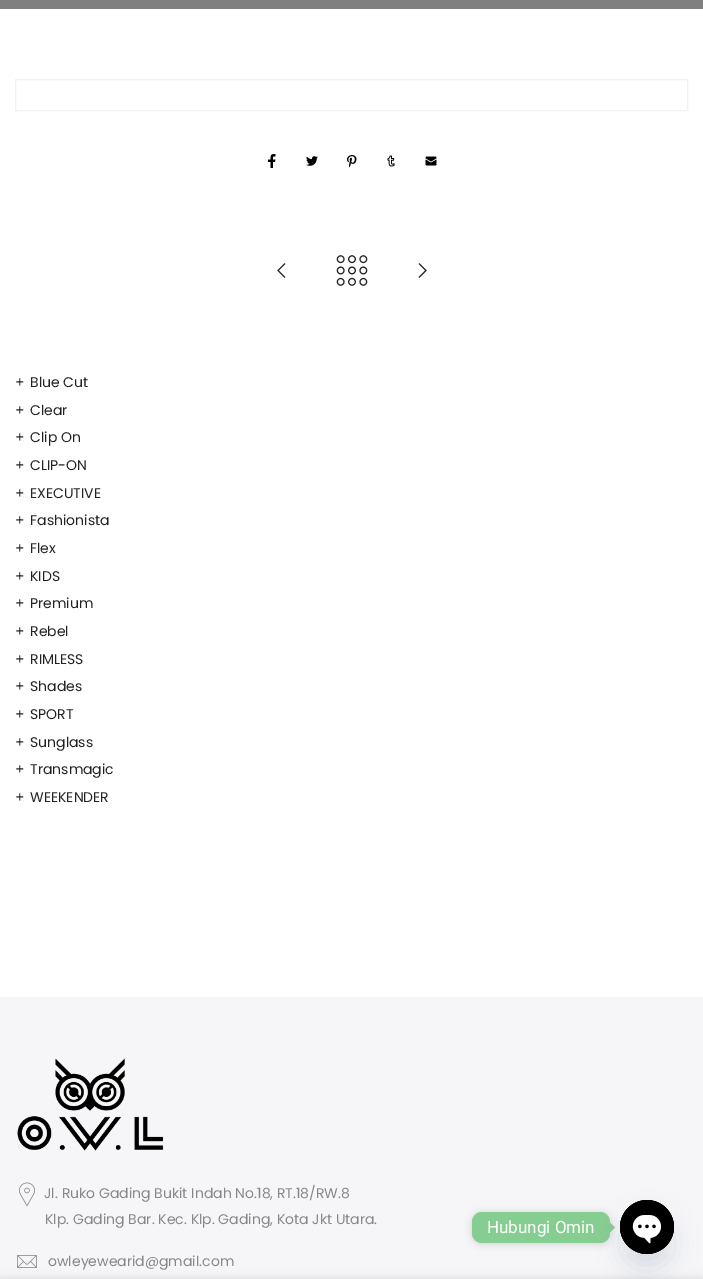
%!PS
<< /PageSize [703 1279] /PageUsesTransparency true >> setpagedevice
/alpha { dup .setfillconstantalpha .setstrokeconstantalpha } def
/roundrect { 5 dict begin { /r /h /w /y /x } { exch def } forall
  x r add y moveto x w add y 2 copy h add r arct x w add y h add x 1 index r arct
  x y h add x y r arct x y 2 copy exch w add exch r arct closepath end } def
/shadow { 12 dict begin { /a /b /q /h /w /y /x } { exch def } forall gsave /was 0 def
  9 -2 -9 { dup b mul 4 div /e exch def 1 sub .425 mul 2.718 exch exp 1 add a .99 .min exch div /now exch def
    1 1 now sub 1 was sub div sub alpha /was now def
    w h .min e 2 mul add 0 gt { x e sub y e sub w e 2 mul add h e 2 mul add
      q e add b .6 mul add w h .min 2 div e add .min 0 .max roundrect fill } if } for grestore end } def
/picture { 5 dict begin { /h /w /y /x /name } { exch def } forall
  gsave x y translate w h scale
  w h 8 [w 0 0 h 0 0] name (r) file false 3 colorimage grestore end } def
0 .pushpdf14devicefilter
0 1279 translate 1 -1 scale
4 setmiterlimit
1 setgray
0 0 703 1279 rectfill
0.502 setgray
0 0 703 9 rectfill
0.945 setgray
15.5 79.5 672 31 rectstroke
(img1.rgb) 268 154 8 14 picture
(img2.rgb) 306 156 12 10 picture
(img3.rgb) 347 155 10 13 picture
(img4.rgb) 387 155 8 12 picture
(img5.rgb) 425 156 12 10 picture
(img6.rgb) 277 263 9 15 picture
(img7.rgb) 336 255 32 31 picture
(img8.rgb) 418 263 9 15 picture
/Poppins-Regular [14 0 0 -14 0 0] selectfont
0.133 setgray
15 387 moveto (+) show
30 387 moveto (Blue Cut) show
15 415 moveto (+) show
30 415 moveto (Clear) show
15 442 moveto (+) show
30 442 moveto (Clip On) show
15 470 moveto (+) show
30 470 moveto (CLIP-ON) show
15 498 moveto (+) show
30 498 moveto (EXECUTIVE) show
15 525 moveto (+) show
30 525 moveto (Fashionista) show
15 553 moveto (+) show
30 553 moveto (Flex) show
15 581 moveto (+) show
30 581 moveto (KIDS) show
15 608 moveto (+) show
30 608 moveto (Premium) show
15 636 moveto (+) show
30 636 moveto (Rebel) show
15 664 moveto (+) show
30 664 moveto (RIMLESS) show
15 691 moveto (+) show
30 691 moveto (Shades) show
15 719 moveto (+) show
30 719 moveto (SPORT) show
15 747 moveto (+) show
30 747 moveto (Sunglass) show
15 774 moveto (+) show
30 774 moveto (Transmagic) show
15 802 moveto (+) show
30 802 moveto (WEEKENDER) show
0.965 0.965 0.973 setrgbcolor
0 997 703 282 rectfill
(img9.rgb) 17 1058 147 93 picture
(img10.rgb) 19 1182 16 25 picture
0.529 setgray
44 1198 moveto (Jl. Ruko Gading Bukit Indah No.18, RT.18/RW.8) show
45 1224 moveto (Klp. Gading Bar. Kec. Klp. Gading, Kota Jkt Utara.) show
(img11.rgb) 17 1255 20 13 picture
48 1266 moveto (owleyewearid@gmail.com) show
0 setgray
472 1213 138 31 10 4 0.15 shadow
0.525 0.804 0.569 setrgbcolor
472 1212 138 31 10 roundrect fill
/Roboto-Regular [17 0 0 -17 0 0] selectfont
1 setgray
487 1233 moveto (Hubungi Omin) show
0.525 0.804 0.569 setrgbcolor
newpath 610 1232.5 moveto 610 1222.5 lineto 615 1227.5 lineto closepath fill
0.286 0.408 0.494 setrgbcolor
620 1216 54 54 27 12 0.16 shadow
(img12.rgb) 620 1200 54 54 picture
0 setgray
0 1279 703 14 0 4.5 0.14 shadow
.poppdf14devicefilter showpage
